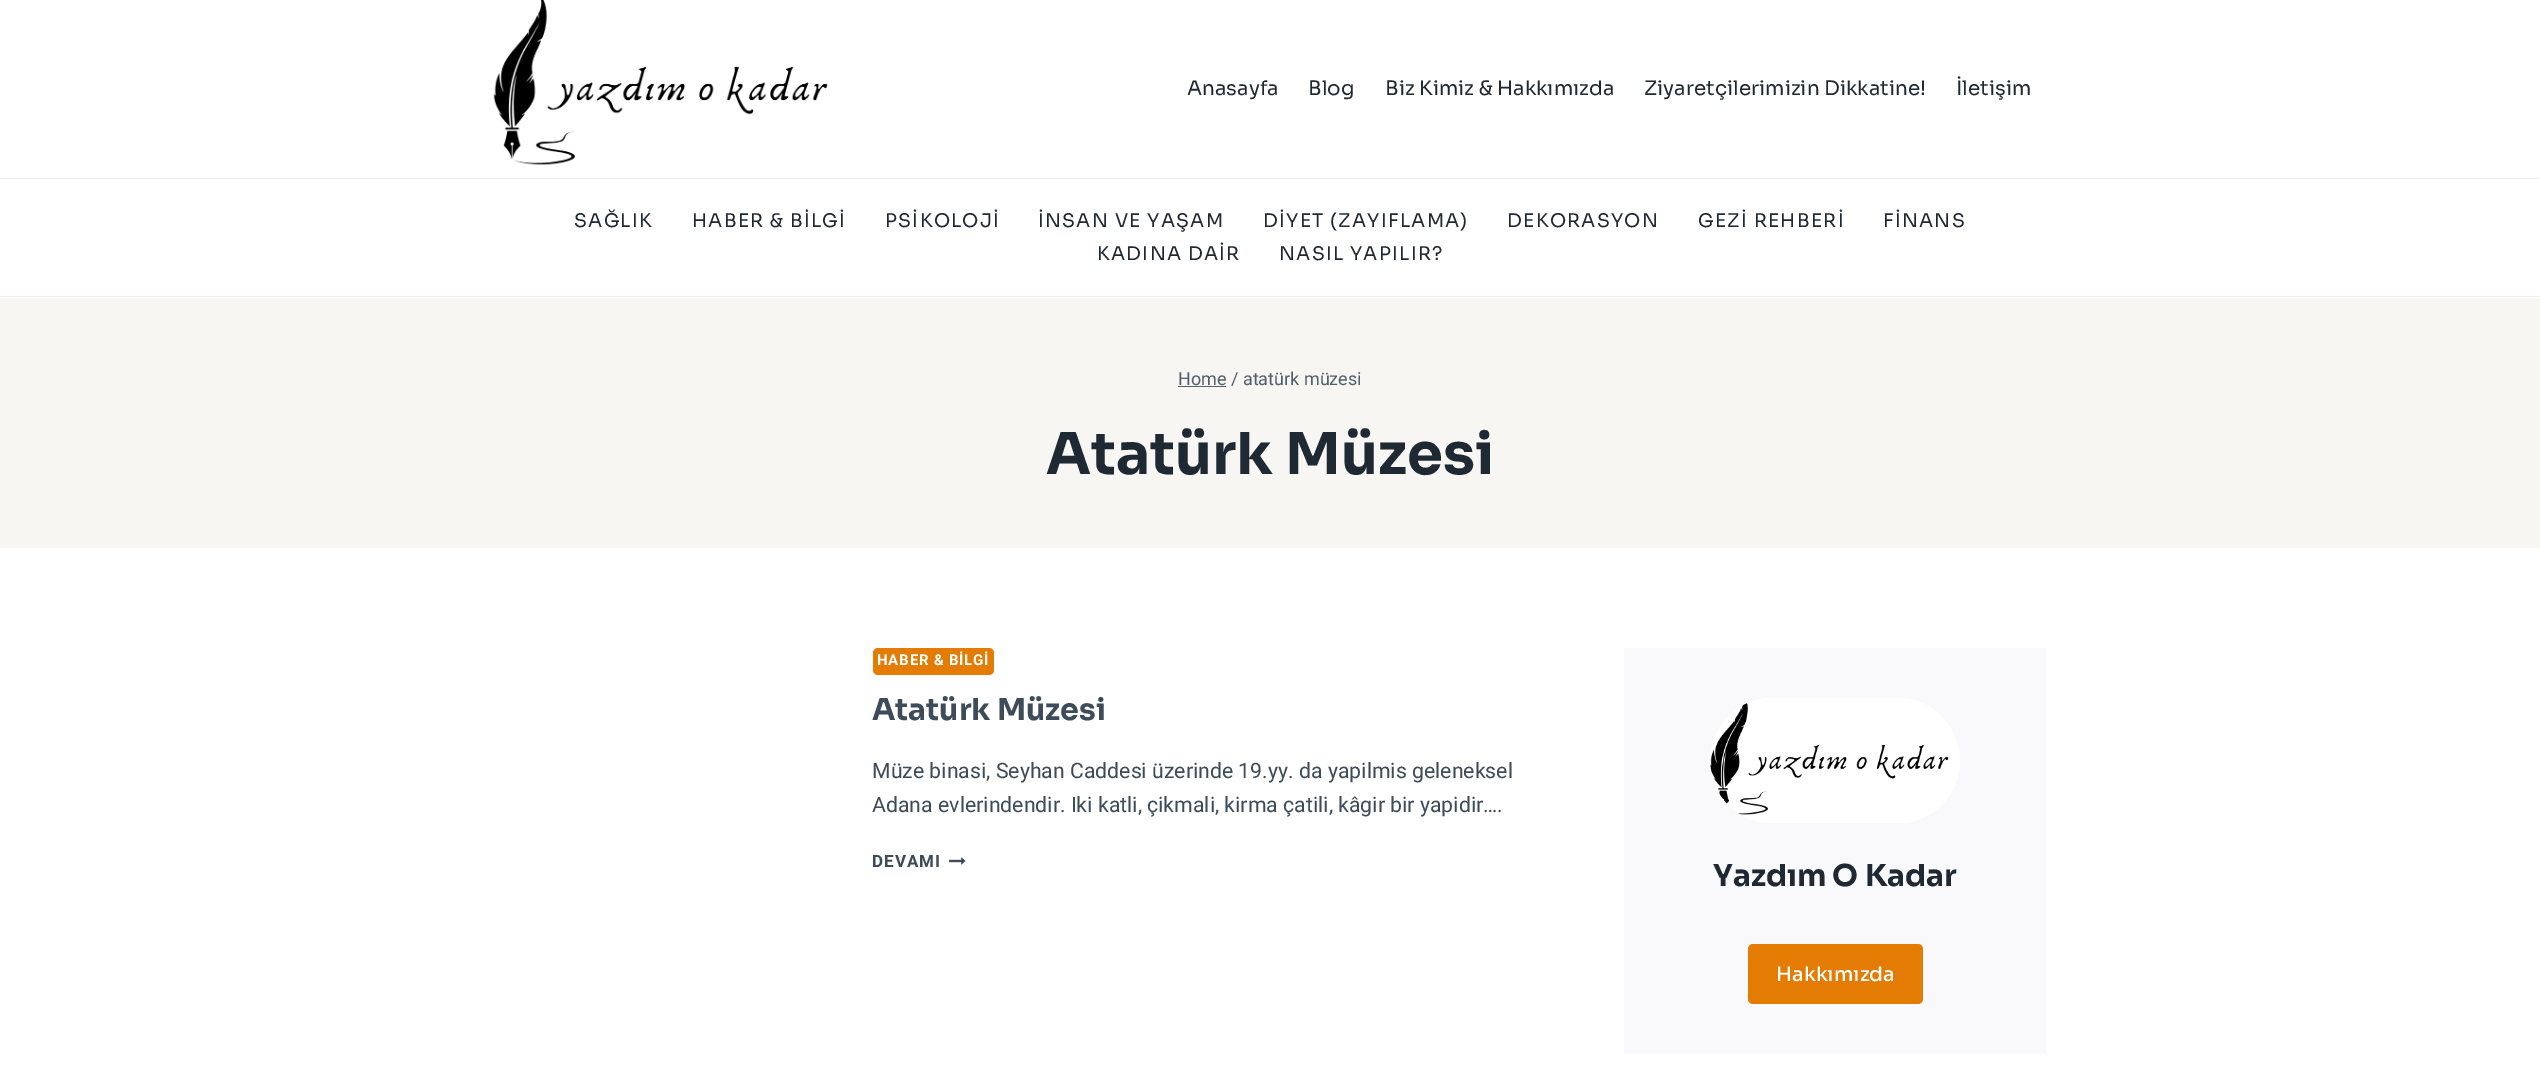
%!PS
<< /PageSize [2540 1087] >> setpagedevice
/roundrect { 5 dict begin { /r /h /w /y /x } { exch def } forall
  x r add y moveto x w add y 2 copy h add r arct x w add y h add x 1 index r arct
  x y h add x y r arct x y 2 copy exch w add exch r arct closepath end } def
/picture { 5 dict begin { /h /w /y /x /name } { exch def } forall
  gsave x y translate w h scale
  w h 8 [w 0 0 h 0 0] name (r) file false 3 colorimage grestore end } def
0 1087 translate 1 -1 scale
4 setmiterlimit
1 setgray
0 0 2540 1087 rectfill
(img1.rgb) 493 0 335 165 picture
/Sora-Regular [20 0 0 -20 0 0] selectfont
0.122 0.161 0.2 setrgbcolor
1187 95 moveto (Anasayfa) show
1308 95 moveto (Blog) show
1385 95 moveto (Biz Kimiz & Hakkımızda) show
1644 95 moveto (Ziyaretçilerimizin Dikkatine!) show
1956 95 moveto (İletişim) show
0.933 setgray
0 178 2540 1 rectfill
0 296 2540 1 rectfill
/Sora-Regular [18.75 0 0 -18.75 0 0] selectfont
0.122 0.161 0.2 setrgbcolor
574 227 moveto 1.25 0 (SAĞLIK) ashow
692 227 moveto 1.25 0 (HABER & BİLGİ) ashow
885 227 moveto 1.25 0 (PSİKOLOJİ) ashow
1038 227 moveto 1.25 0 (İNSAN VE YAŞAM) ashow
1263 227 moveto 1.25 0 (DİYET \(ZAYIFLAMA\)) ashow
1507 227 moveto 1.25 0 (DEKORASYON) ashow
1698 227 moveto 1.25 0 (GEZİ REHBERİ) ashow
1883 227 moveto 1.25 0 (FİNANS) ashow
1097 260 moveto 1.25 0 (KADINA DAİR) ashow
1279 260 moveto 1.25 0 (NASIL YAPILIR?) ashow
0.969 0.965 0.953 setrgbcolor
0 298 2540 250 rectfill
0.322 0.376 0.427 setrgbcolor
1178 386 48 1 rectfill
/Heebo-Regular [18 0 0 -18 0 0] selectfont
1178 385 moveto (Home / atatürk müzesi) show
/Sora-Bold [57.5 0 0 -57.5 0 0] selectfont
0.122 0.161 0.2 setrgbcolor
1046 474 moveto (Atatürk Müzesi) show
0.894 0.482 0.008 setrgbcolor
873 648 121 27 5 roundrect fill
/Heebo-Bold [15 0 0 -15 0 0] selectfont
1 setgray
877 665 moveto 0.75 0 (HABER & BİLGİ) ashow
/Sora-Bold [30 0 0 -30 0 0] selectfont
0.243 0.298 0.349 setrgbcolor
872 720 moveto (Atatürk Müzesi) show
/Heebo-Regular [21.25 0 0 -21.25 0 0] selectfont
872 778 moveto (Müze binasi, Seyhan Caddesi üzerinde 19.yy. da yapilmis geleneksel) show
872 812 moveto (Adana evlerindendir. Iki katli, çikmali, kirma çatili, kâgir bir yapidir….) show
/Heebo-Bold [17 0 0 -17 0 0] selectfont
872 867 moveto 1 0 (DEVAMI) ashow
(img2.rgb) 949 857 17 8 picture
0.976 0.976 0.984 setrgbcolor
1624 648 422 406 rectfill
(img3.rgb) 1710 698 250 125 picture
/Sora-Bold [30 0 0 -30 0 0] selectfont
0.122 0.161 0.2 setrgbcolor
1713 886 moveto (Yazdım O Kadar) show
0.894 0.482 0.008 setrgbcolor
1748 944 175 60 5 roundrect fill
/Sora-Medium [20 0 0 -20 0 0] selectfont
1 setgray
1776 981 moveto (Hakkımızda) show
showpage
